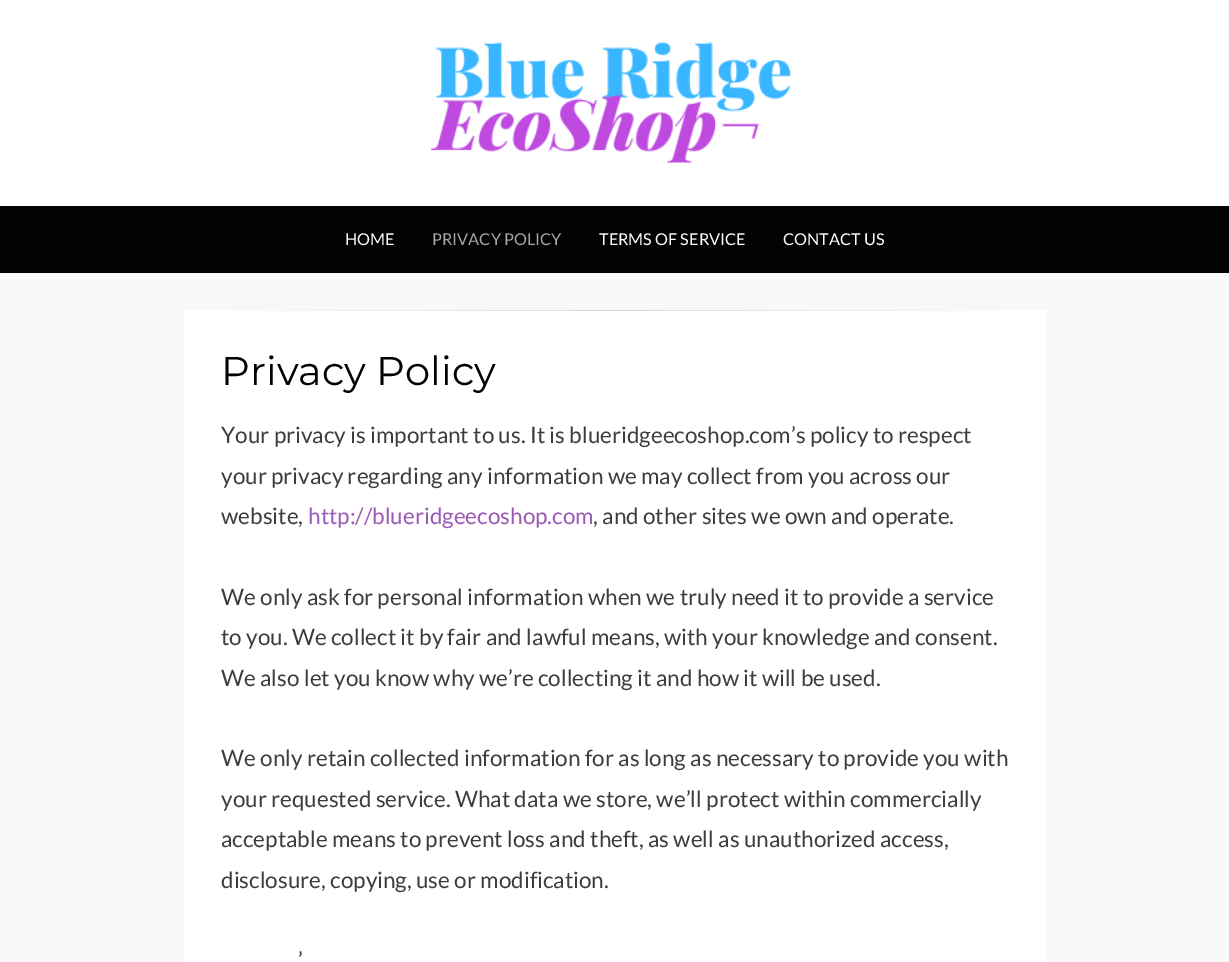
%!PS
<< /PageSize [1229 962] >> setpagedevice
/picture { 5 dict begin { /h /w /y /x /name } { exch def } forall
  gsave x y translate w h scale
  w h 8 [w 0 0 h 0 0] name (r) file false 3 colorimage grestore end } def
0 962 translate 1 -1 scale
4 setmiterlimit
0.973 setgray
0 0 1229 962 rectfill
1 setgray
0 0 1229 206 rectfill
(img1.rgb) 431 42 361 122 picture
0.008 setgray
0 206 1229 67 rectfill
/Lato-Regular [16.25 0 0 -16.25 0 0] selectfont
1 setgray
345 245 moveto (HOME) show
0.651 setgray
432 245 moveto (PRIVACY POLICY) show
1 setgray
599 245 moveto (TERMS OF SERVICE) show
783 245 moveto (CONTACT US) show
184 311 862 651 rectfill
gsave newpath 184 310 moveto 1046 310 lineto 1046 311 lineto 184 311 lineto closepath clip newpath
<< /ShadingType 2 /ColorSpace /DeviceRGB /Coords [184 311 1046 311] /Extend [true true] /Function << /FunctionType 3 /Domain [0 1] /Functions [<< /FunctionType 2 /Domain [0 1] /C0 [1 1 1] /C1 [0.851 0.851 0.851] /N 1 >> << /FunctionType 2 /Domain [0 1] /C0 [0.851 0.851 0.851] /C1 [1 1 1] /N 1 >>] /Bounds [0.5] /Encode [0 1 0 1] >> >> shfill grestore
/Montserrat-Regular [40 0 0 -40 0 0] selectfont
0.008 setgray
221 385 moveto (Privacy Policy) show
/Lato-Regular [22.5 0 0 -22.5 0 0] selectfont
0.239 setgray
221 443 moveto (Your privacy is important to us. It is blueridgeecoshop.com’s policy to respect) show
221 484 moveto (your privacy regarding any information we may collect from you across our) show
221 524 moveto (website,) show
0.608 0.349 0.714 setrgbcolor
308 524 moveto (http://blueridgeecoshop.com) show
0.239 setgray
593 524 moveto (, and other sites we own and operate.) show
221 605 moveto (We only ask for personal information when we truly need it to provide a service) show
221 645 moveto (to you. We collect it by fair and lawful means, with your knowledge and consent.) show
221 686 moveto (We also let you know why we’re collecting it and how it will be used.) show
221 766 moveto (We only retain collected information for as long as necessary to provide you with) show
221 807 moveto (your requested service. What data we store, we’ll protect within commercially) show
221 847 moveto (acceptable means to prevent loss and theft, as well as unauthorized access,) show
221 888 moveto (disclosure, copying, use or modification.) show
298 968 moveto (’) show
showpage
